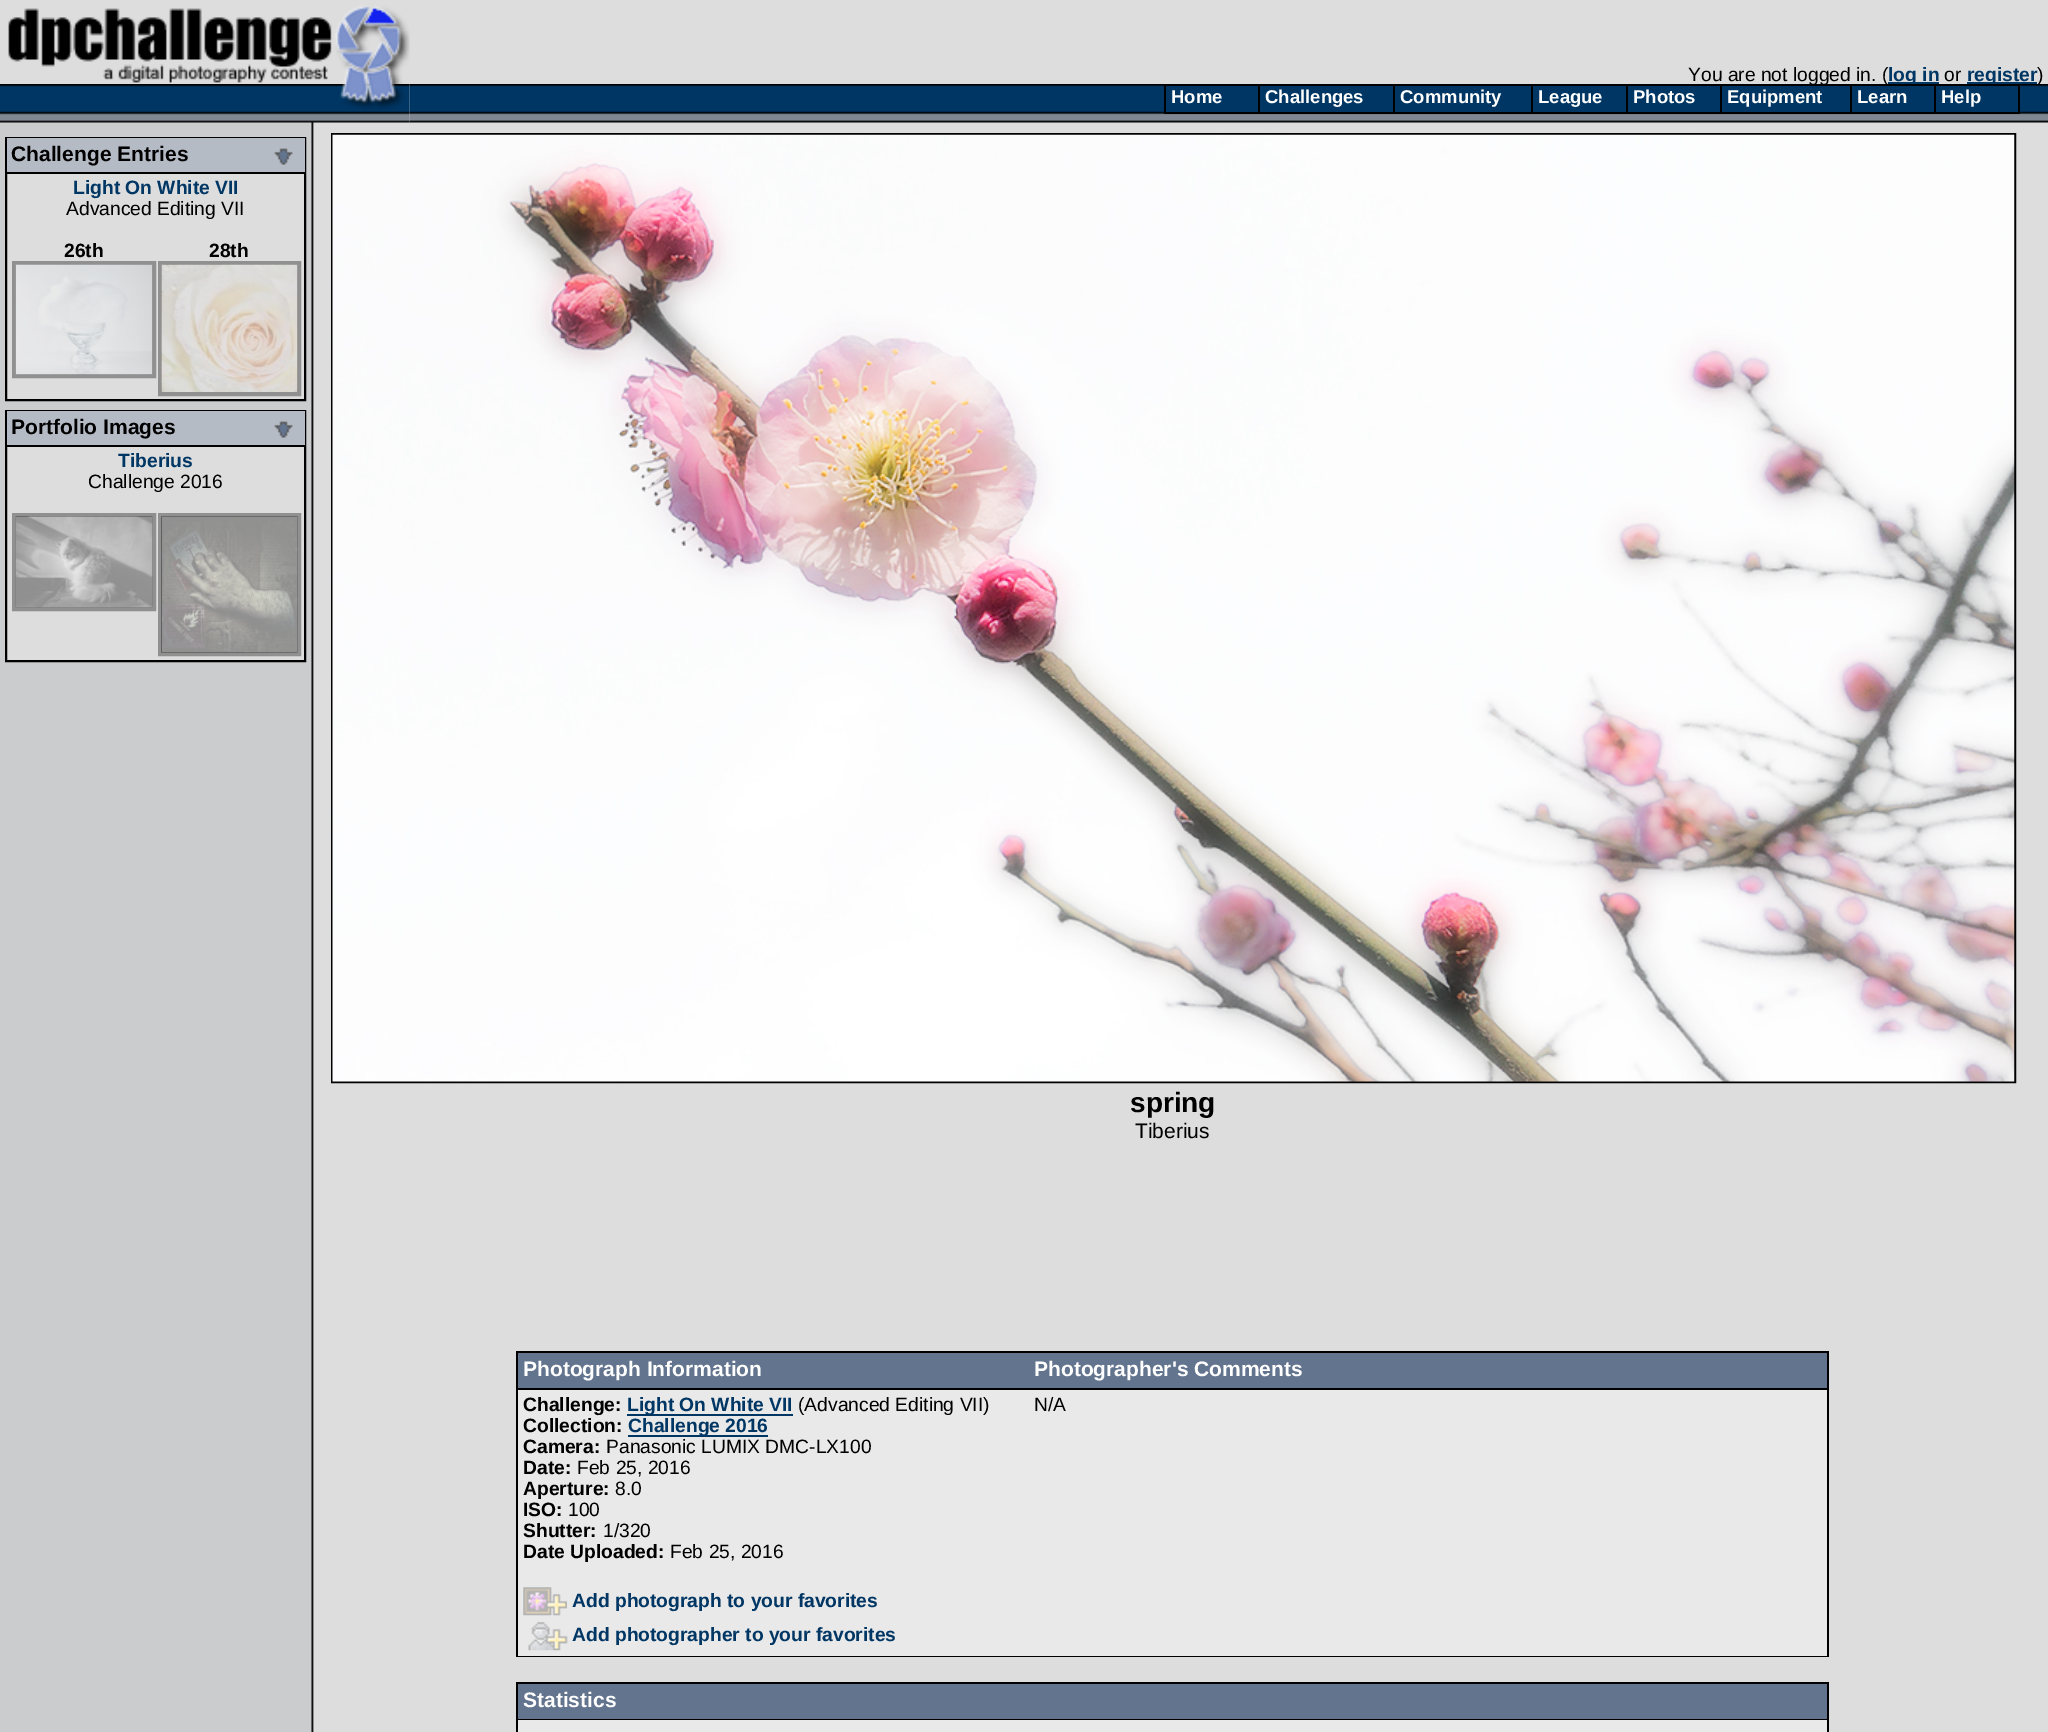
%!PS
<< /PageSize [2048 1732] >> setpagedevice
/picture { 5 dict begin { /h /w /y /x /name } { exch def } forall
  gsave x y translate w h scale
  w h 8 [w 0 0 h 0 0] name (r) file false 3 colorimage grestore end } def
0 1732 translate 1 -1 scale
4 setmiterlimit
0.867 setgray
0 0 2048 1732 rectfill
(img1.rgb) 0 122 314 1610 picture
(img2.rgb) 0 0 410 84 picture
(img4.rgb) 409 84 1639 39 picture
/LiberationSans-Regular [19.25 0 0 -19.25 0 0] selectfont
0 setgray
1688 81 moveto (You are not logged in. \() show
0 0.212 0.392 setrgbcolor
1888 82 51 2 rectfill
/LiberationSans-Bold [19.25 0 0 -19.25 0 0] selectfont
1888 81 moveto (log in) show
/LiberationSans-Regular [19.25 0 0 -19.25 0 0] selectfont
0 setgray
1944 81 moveto (or) show
0 0.212 0.392 setrgbcolor
1967 82 70 2 rectfill
/LiberationSans-Bold [19.25 0 0 -19.25 0 0] selectfont
1967 81 moveto (register) show
/LiberationSans-Regular [19.25 0 0 -19.25 0 0] selectfont
0 setgray
2037 81 moveto (\)) show
(img3.rgb) 0 84 410 39 picture
1164 84 856 30 rectfill
0 0.212 0.392 setrgbcolor
1166 86 92 26 rectfill
/LiberationSans-Bold [18.5 0 0 -18.5 0 0] selectfont
1 setgray
1171 103 moveto (Home) show
0 0.212 0.392 setrgbcolor
1260 86 133 26 rectfill
1 setgray
1265 103 moveto (Challenges) show
0 0.212 0.392 setrgbcolor
1395 86 136 26 rectfill
1 setgray
1400 103 moveto (Community) show
0 0.212 0.392 setrgbcolor
1533 86 93 26 rectfill
1 setgray
1538 103 moveto (League) show
0 0.212 0.392 setrgbcolor
1628 86 92 26 rectfill
1 setgray
1633 103 moveto (Photos) show
0 0.212 0.392 setrgbcolor
1722 86 128 26 rectfill
1 setgray
1727 103 moveto (Equipment) show
0 0.212 0.392 setrgbcolor
1852 86 82 26 rectfill
1 setgray
1857 103 moveto (Learn) show
0 0.212 0.392 setrgbcolor
1936 86 82 26 rectfill
1 setgray
1941 103 moveto (Help) show
0.867 setgray
7 174 297 225 rectfill
0 setgray
2 setlinewidth
6 138 299 262 rectstroke
0.71 0.733 0.773 setrgbcolor
7 138 298 34 rectfill
0 setgray
7 172 298 2 rectfill
/LiberationSans-Bold [21 0 0 -21 0 0] selectfont
11 161 moveto (Challenge Entries) show
(img5.rgb) 274 148 19 17 picture
/LiberationSans-Bold [19.25 0 0 -19.25 0 0] selectfont
0 0.212 0.392 setrgbcolor
73 194 moveto (Light On White VII) show
/LiberationSans-Regular [19.25 0 0 -19.25 0 0] selectfont
0 setgray
66 215 moveto (Advanced Editing VII) show
/LiberationSans-Bold [19.25 0 0 -19.25 0 0] selectfont
64 257 moveto (26th) show
0.565 setgray
4 setlinewidth
14 263 140 113 rectstroke
(img6.rgb) 15 264 138 111 picture
0 setgray
209 257 moveto (28th) show
0.565 setgray
160 263 139 131 rectstroke
(img7.rgb) 161 264 137 128 picture
0.867 setgray
7 447 297 213 rectfill
0 setgray
2 setlinewidth
6 411 299 250 rectstroke
0.71 0.733 0.773 setrgbcolor
7 411 298 34 rectfill
0 setgray
7 445 298 2 rectfill
/LiberationSans-Bold [21 0 0 -21 0 0] selectfont
11 434 moveto (Portfolio Images) show
(img5.rgb) 274 421 19 17 picture
/LiberationSans-Bold [19.25 0 0 -19.25 0 0] selectfont
0 0.212 0.392 setrgbcolor
118 467 moveto (Tiberius) show
/LiberationSans-Regular [19.25 0 0 -19.25 0 0] selectfont
0 setgray
88 488 moveto (Challenge 2016) show
0.565 setgray
4 setlinewidth
14 515 140 94 rectstroke
(img8.rgb) 15 516 138 92 picture
160 515 139 139 rectstroke
(img9.rgb) 161 516 137 137 picture
0 setgray
2 setlinewidth
332 134 1683 948 rectstroke
(img10.rgb) 332 134 1683 948 picture
/LiberationSans-Bold [28 0 0 -28 0 0] selectfont
1130 1112 moveto (spring) show
/LiberationSans-Regular [21 0 0 -21 0 0] selectfont
1135 1138 moveto (Tiberius) show
516 1351 1313 306 rectfill
0.388 0.455 0.561 setrgbcolor
518 1353 1309 35 rectfill
/LiberationSans-Bold [21 0 0 -21 0 0] selectfont
1 setgray
523 1376 moveto (Photograph Information) show
1034 1376 moveto (Photographer's Comments) show
0.914 setgray
518 1390 1309 266 rectfill
/LiberationSans-Bold [19.25 0 0 -19.25 0 0] selectfont
0 setgray
523 1411 moveto (Challenge:) show
0 0.212 0.392 setrgbcolor
627 1414 166 2 rectfill
627 1411 moveto (Light On White VII) show
/LiberationSans-Regular [19.25 0 0 -19.25 0 0] selectfont
0 setgray
798 1411 moveto (\(Advanced Editing VII\)) show
/LiberationSans-Bold [19.25 0 0 -19.25 0 0] selectfont
523 1432 moveto (Collection:) show
0 0.212 0.392 setrgbcolor
628 1435 140 2 rectfill
628 1432 moveto (Challenge 2016) show
0 setgray
523 1453 moveto (Camera:) show
/LiberationSans-Regular [19.25 0 0 -19.25 0 0] selectfont
606 1453 moveto (Panasonic LUMIX DMC-LX100) show
/LiberationSans-Bold [19.25 0 0 -19.25 0 0] selectfont
523 1474 moveto (Date:) show
/LiberationSans-Regular [19.25 0 0 -19.25 0 0] selectfont
577 1474 moveto (Feb 25, 2016) show
/LiberationSans-Bold [19.25 0 0 -19.25 0 0] selectfont
523 1495 moveto (Aperture:) show
/LiberationSans-Regular [19.25 0 0 -19.25 0 0] selectfont
615 1495 moveto (8.0) show
/LiberationSans-Bold [19.25 0 0 -19.25 0 0] selectfont
523 1516 moveto (ISO:) show
/LiberationSans-Regular [19.25 0 0 -19.25 0 0] selectfont
568 1516 moveto (100) show
/LiberationSans-Bold [19.25 0 0 -19.25 0 0] selectfont
523 1537 moveto (Shutter:) show
/LiberationSans-Regular [19.25 0 0 -19.25 0 0] selectfont
603 1537 moveto (1/320) show
/LiberationSans-Bold [19.25 0 0 -19.25 0 0] selectfont
523 1558 moveto (Date Uploaded:) show
/LiberationSans-Regular [19.25 0 0 -19.25 0 0] selectfont
670 1558 moveto (Feb 25, 2016) show
(img11.rgb) 523 1587 44 29 picture
/LiberationSans-Bold [19.25 0 0 -19.25 0 0] selectfont
0 0.212 0.392 setrgbcolor
572 1607 moveto (Add photograph to your favorites) show
(img12.rgb) 528 1622 40 29 picture
572 1641 moveto (Add photographer to your favorites) show
/LiberationSans-Regular [19.25 0 0 -19.25 0 0] selectfont
0 setgray
1034 1411 moveto (N/A) show
516 1682 1313 50 rectfill
0.388 0.455 0.561 setrgbcolor
518 1684 1309 35 rectfill
/LiberationSans-Bold [21 0 0 -21 0 0] selectfont
1 setgray
523 1707 moveto (Statistics) show
0.914 setgray
518 1720 1309 12 rectfill
showpage
